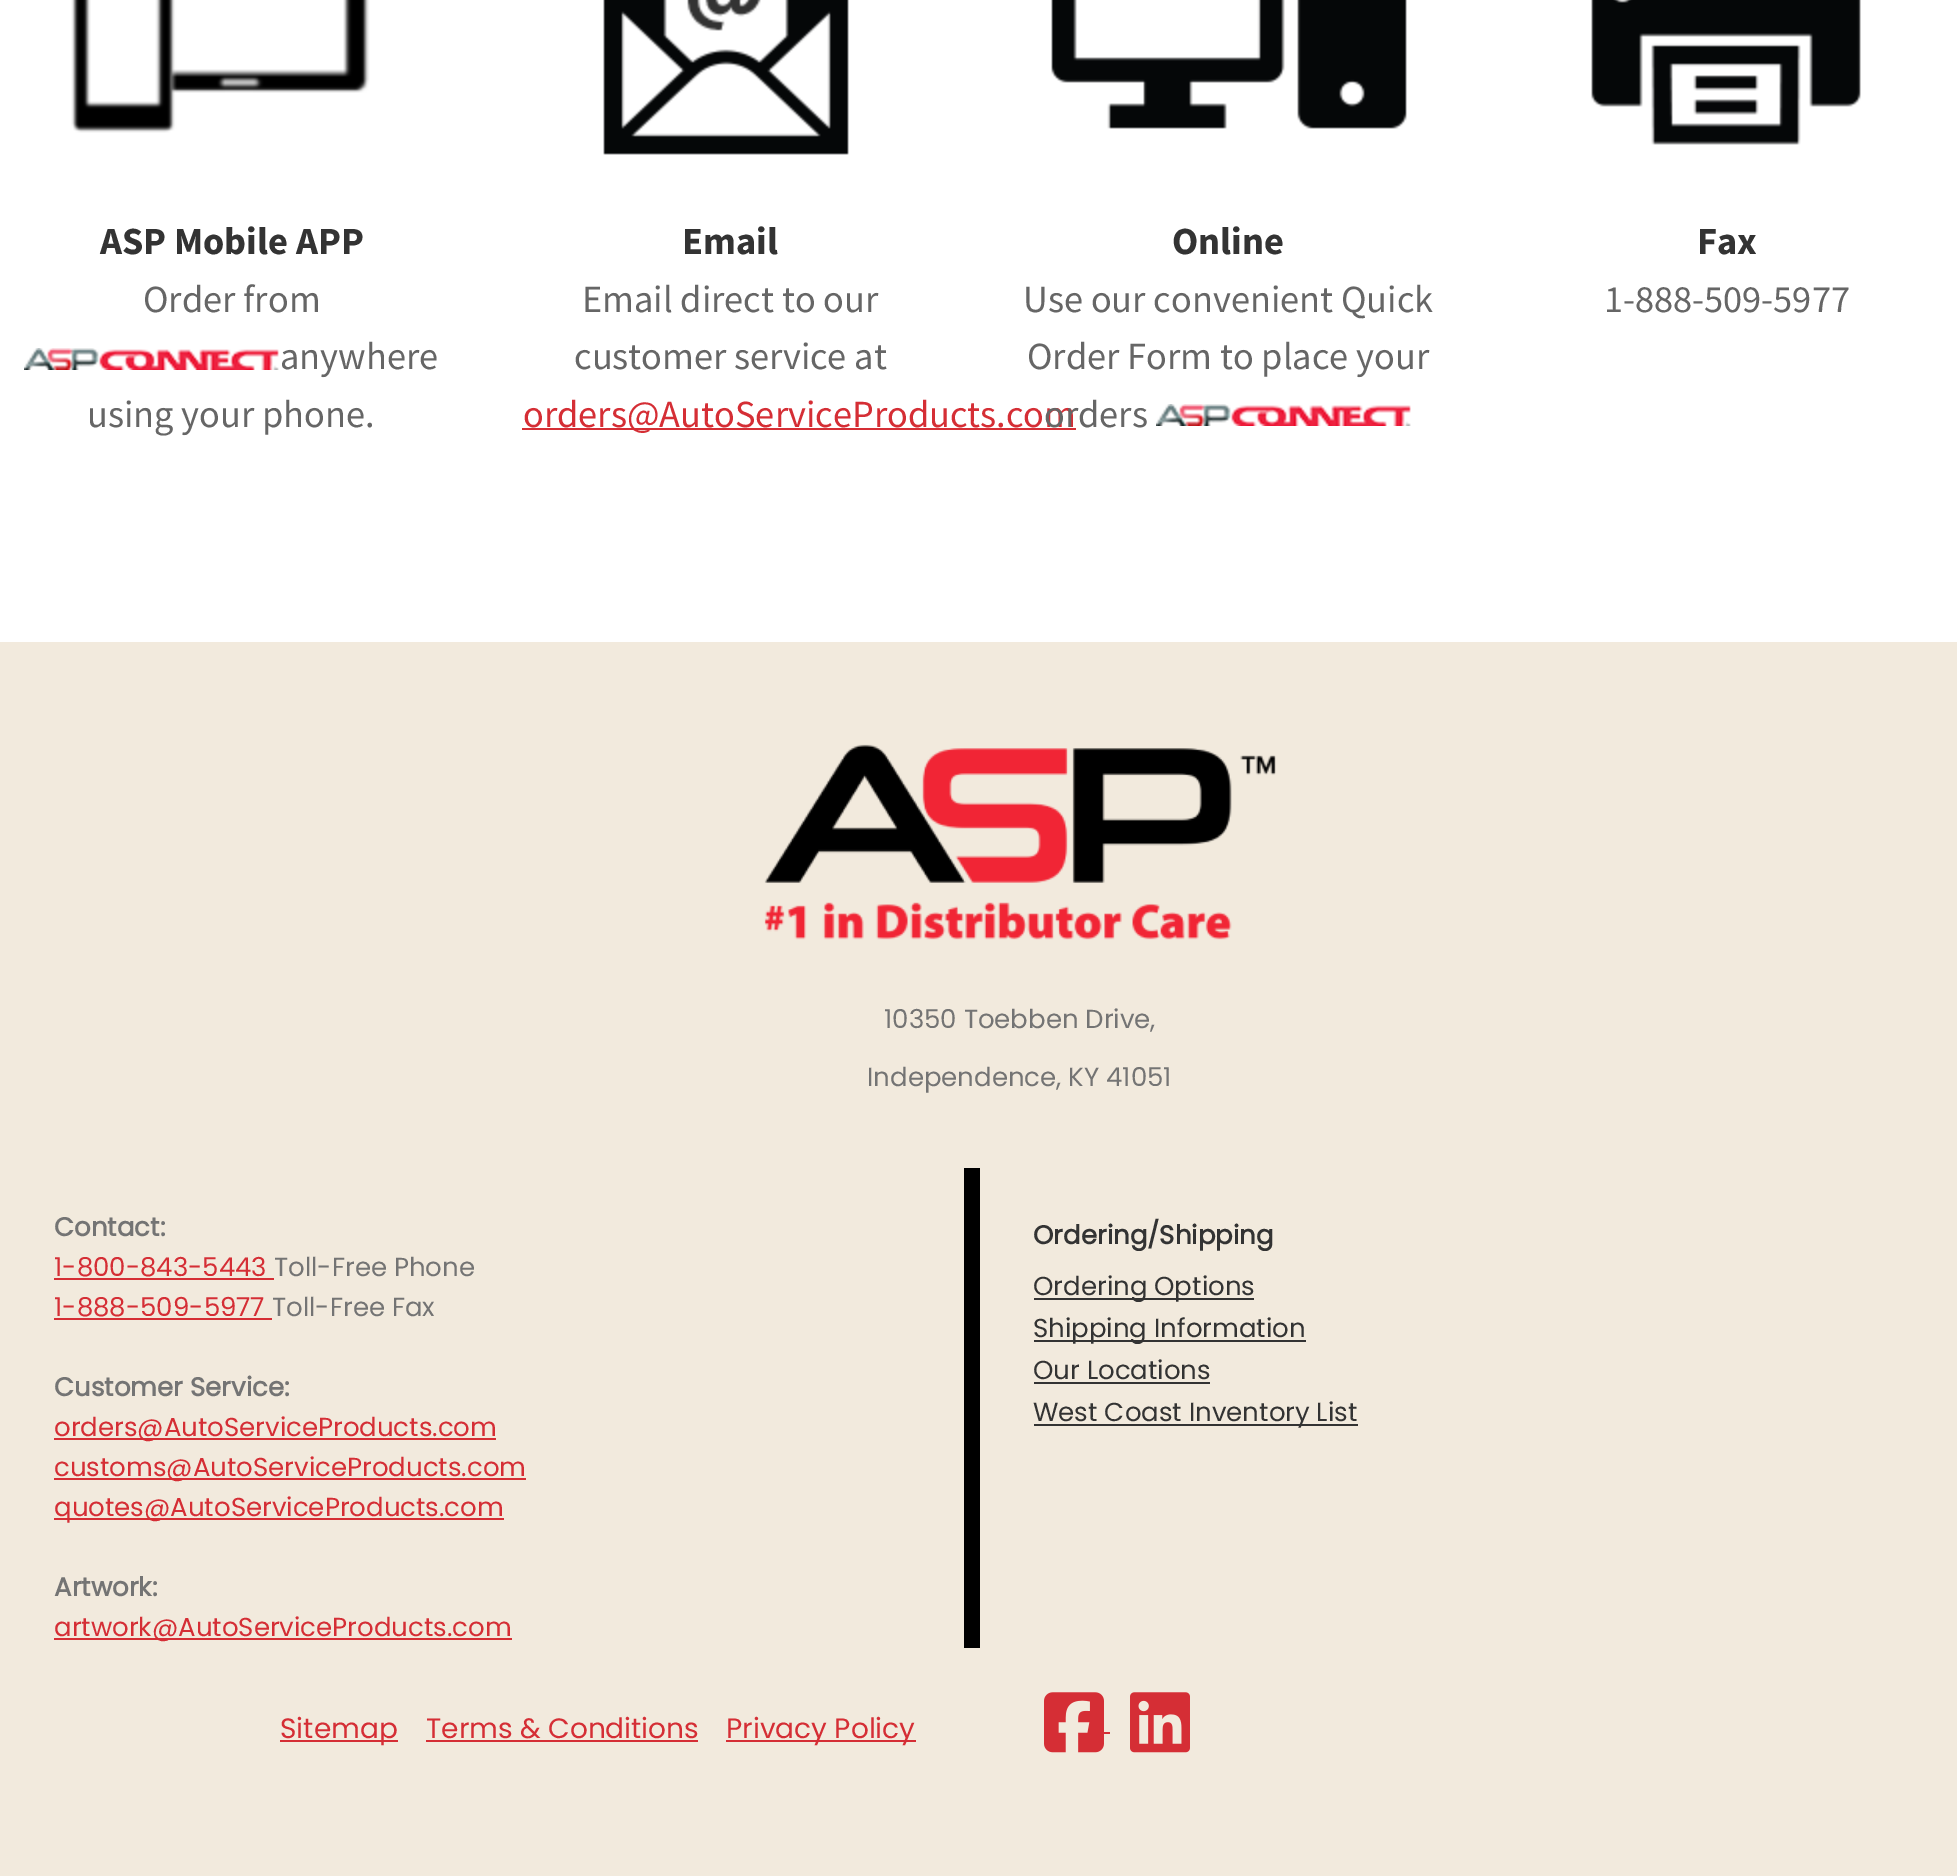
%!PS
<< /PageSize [1957 1876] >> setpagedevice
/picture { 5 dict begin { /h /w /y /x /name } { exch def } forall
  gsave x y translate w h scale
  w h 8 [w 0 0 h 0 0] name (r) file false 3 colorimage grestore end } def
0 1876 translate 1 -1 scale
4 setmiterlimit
1 setgray
0 0 1957 1876 rectfill
(img1.rgb) 71 0 299 133 picture
/SourceSansPro-Bold [38.4 0 0 -38.4 0 0] selectfont
0.2 setgray
100 254 moveto (ASP Mobile APP) show
/SourceSansPro-Regular [38.4 0 0 -38.4 0 0] selectfont
0.4 setgray
143 312 moveto (Order from) show
(img2.rgb) 24 348 255 22 picture
280 369 moveto (anywhere) show
87 427 moveto (using your phone.) show
(img3.rgb) 603 0 246 155 picture
/SourceSansPro-Bold [38.4 0 0 -38.4 0 0] selectfont
0.2 setgray
682 254 moveto (Email) show
/SourceSansPro-Regular [38.4 0 0 -38.4 0 0] selectfont
0.4 setgray
582 312 moveto (Email direct to our) show
574 369 moveto (customer service at) show
0.835 0.18 0.208 setrgbcolor
522 428 554 2 rectfill
523 427 moveto (orders@AutoServiceProducts.com) show
(img4.rgb) 1051 0 356 129 picture
/SourceSansPro-Bold [38.4 0 0 -38.4 0 0] selectfont
0.2 setgray
1172 254 moveto (Online) show
/SourceSansPro-Regular [38.4 0 0 -38.4 0 0] selectfont
0.4 setgray
1023 312 moveto (Use our convenient Quick) show
1027 369 moveto (Order Form to place your) show
1044 427 moveto (orders) show
(img2.rgb) 1156 404 255 22 picture
(img5.rgb) 1591 0 270 145 picture
/SourceSansPro-Bold [38.4 0 0 -38.4 0 0] selectfont
0.2 setgray
1697 254 moveto (Fax) show
/SourceSansPro-Regular [38.4 0 0 -38.4 0 0] selectfont
0.4 setgray
1604 312 moveto (1-888-509-5977) show
0.949 0.918 0.867 setrgbcolor
0 642 1957 1234 rectfill
(img6.rgb) 764 744 512 196 picture
/Poppins-Regular [26 0 0 -26 0 0] selectfont
0.455 setgray
884 1028 moveto (10350 Toebben Drive,) show
867 1086 moveto (Independence, KY 41051) show
0 setgray
964 1168 16 480 rectfill
/Poppins-Bold [26 0 0 -26 0 0] selectfont
0.455 setgray
54 1236 moveto (Contact:) show
/Poppins-Regular [26 0 0 -26 0 0] selectfont
0.835 0.18 0.208 setrgbcolor
54 1276 moveto (1-800-843-5443) show
54 1278 220 2 rectfill
0.455 setgray
274 1276 moveto (Toll-Free Phone) show
0.835 0.18 0.208 setrgbcolor
54 1316 moveto (1-888-509-5977) show
54 1318 218 2 rectfill
0.455 setgray
272 1316 moveto (Toll-Free Fax) show
/Poppins-Bold [26 0 0 -26 0 0] selectfont
54 1396 moveto (Customer Service:) show
0.835 0.18 0.208 setrgbcolor
54 1438 442 2 rectfill
/Poppins-Regular [26 0 0 -26 0 0] selectfont
54 1436 moveto (orders@AutoServiceProducts.com) show
54 1478 472 2 rectfill
54 1476 moveto (customs@AutoServiceProducts.com) show
54 1518 450 2 rectfill
54 1516 moveto (quotes@AutoServiceProducts.com) show
/Poppins-Bold [26 0 0 -26 0 0] selectfont
0.455 setgray
54 1596 moveto (Artwork:) show
0.835 0.18 0.208 setrgbcolor
54 1638 458 2 rectfill
/Poppins-Regular [26 0 0 -26 0 0] selectfont
54 1636 moveto (artwork@AutoServiceProducts.com) show
/Poppins-Bold [26 0 0 -26 0 0] selectfont
0.2 setgray
1033 1244 moveto (Ordering/Shipping) show
1034 1298 220 2 rectfill
/Poppins-Regular [26 0 0 -26 0 0] selectfont
1033 1295 moveto (Ordering Options) show
1034 1340 272 2 rectfill
1033 1337 moveto (Shipping Information) show
1033 1379 moveto (Our Locations) show
1034 1382 176 2 rectfill
1034 1424 324 2 rectfill
1033 1421 moveto (West Coast Inventory List) show
0.835 0.18 0.208 setrgbcolor
280 1740 118 2 rectfill
/Poppins-Regular [28 0 0 -28 0 0] selectfont
280 1738 moveto (Sitemap) show
426 1738 moveto (Terms & Conditions) show
426 1740 272 2 rectfill
726 1740 190 2 rectfill
726 1738 moveto (Privacy Policy) show
(img7.rgb) 1044 1692 60 61 picture
1104 1732 6 2 rectfill
(img8.rgb) 1130 1692 60 61 picture
showpage
